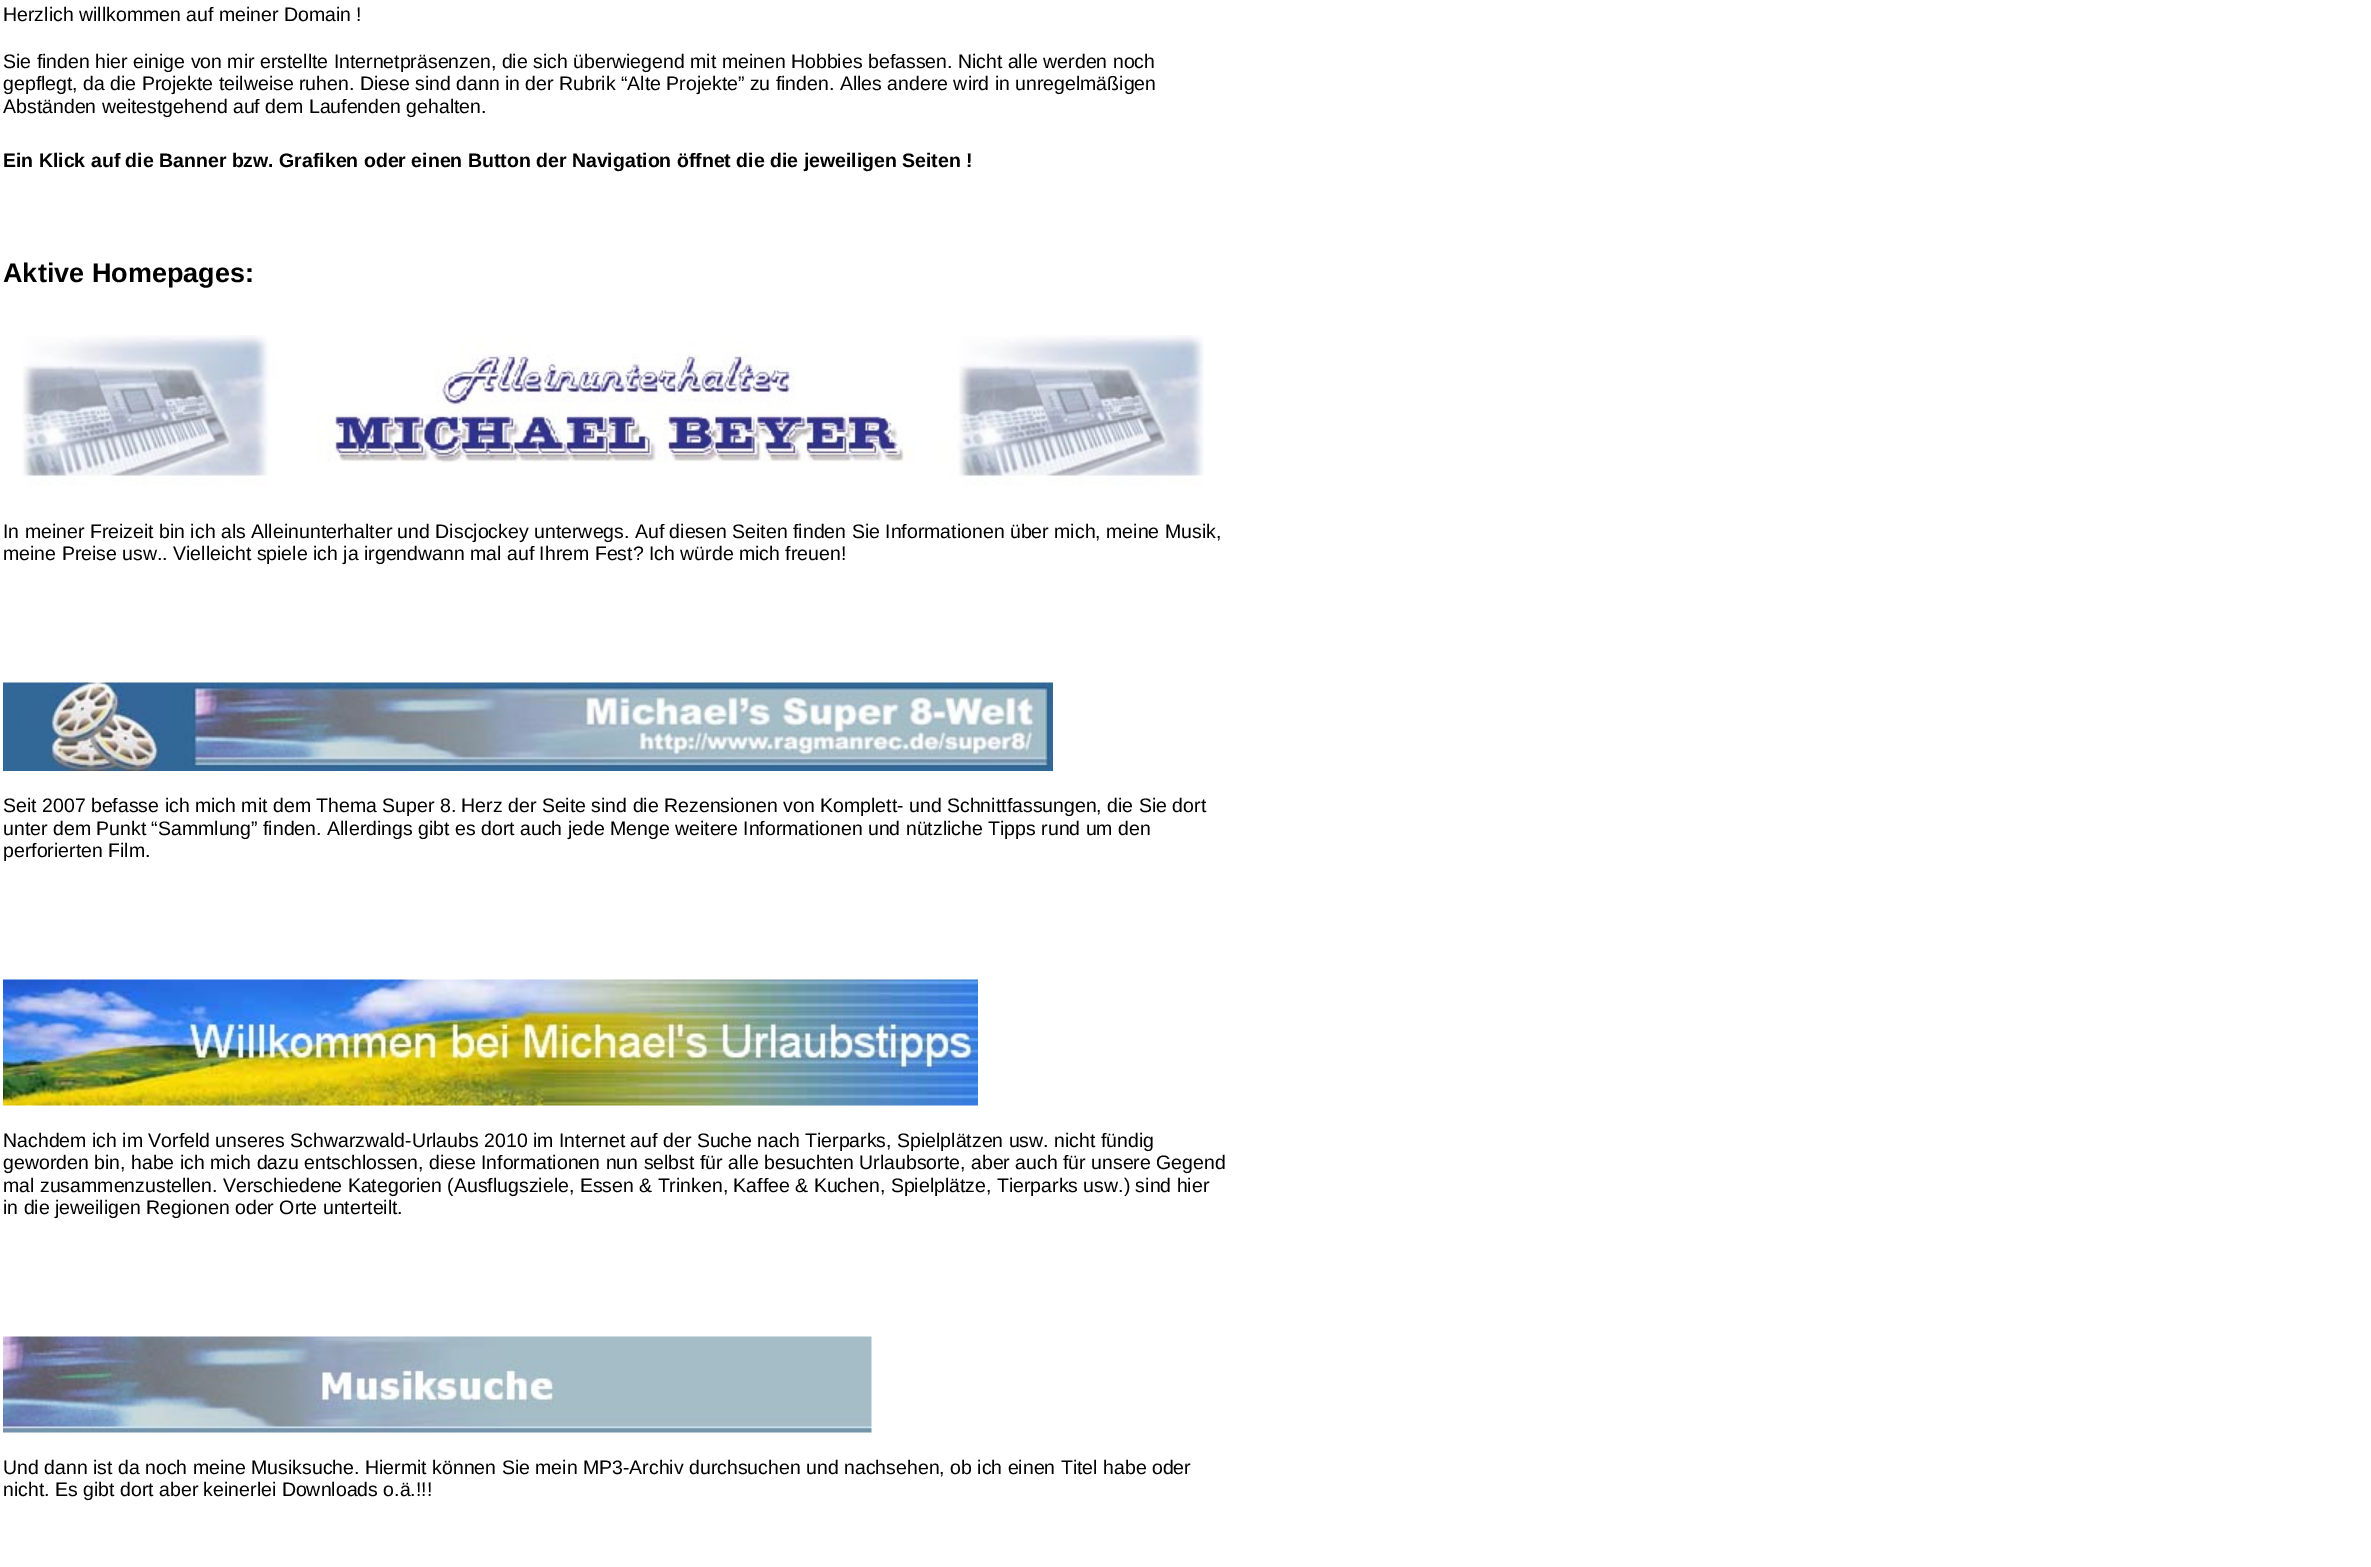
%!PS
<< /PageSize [2371 1567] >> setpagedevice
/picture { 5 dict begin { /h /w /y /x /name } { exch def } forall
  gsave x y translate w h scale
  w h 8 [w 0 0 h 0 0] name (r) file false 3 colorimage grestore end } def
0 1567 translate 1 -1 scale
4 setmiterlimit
1 setgray
0 0 2371 1567 rectfill
/LiberationSans-Regular [19.5 0 0 -19.5 0 0] selectfont
0 setgray
3 21 moveto (Herzlich willkommen auf meiner Domain !) show
3 68 moveto (Sie finden hier einige von mir erstellte Internetpräsenzen, die sich überwiegend mit meinen Hobbies befassen. Nicht alle werden noch) show
3 90 moveto (gepflegt, da die Projekte teilweise ruhen. Diese sind dann in der Rubrik “Alte Projekte” zu finden. Alles andere wird in unregelmäßigen) show
3 113 moveto (Abständen weitestgehend auf dem Laufenden gehalten.) show
/LiberationSans-Bold [19.5 0 0 -19.5 0 0] selectfont
3 167 moveto (Ein Klick auf die Banner bzw. Grafiken oder einen Button der Navigation öffnet die die jeweiligen Seiten !) show
/LiberationSans-Bold [27 0 0 -27 0 0] selectfont
3 282 moveto (Aktive Homepages:) show
(img1.rgb) 22 335 1182 151 picture
/LiberationSans-Regular [19.5 0 0 -19.5 0 0] selectfont
3 538 moveto (In meiner Freizeit bin ich als Alleinunterhalter und Discjockey unterwegs. Auf diesen Seiten finden Sie Informationen über mich, meine Musik,) show
3 560 moveto (meine Preise usw.. Vielleicht spiele ich ja irgendwann mal auf Ihrem Fest? Ich würde mich freuen!) show
(img2.rgb) 3 682 1050 89 picture
3 812 moveto (Seit 2007 befasse ich mich mit dem Thema Super 8. Herz der Seite sind die Rezensionen von Komplett- und Schnittfassungen, die Sie dort) show
3 835 moveto (unter dem Punkt “Sammlung” finden. Allerdings gibt es dort auch jede Menge weitere Informationen und nützliche Tipps rund um den) show
3 857 moveto (perforierten Film.) show
(img3.rgb) 3 979 975 127 picture
3 1147 moveto (Nachdem ich im Vorfeld unseres Schwarzwald-Urlaubs 2010 im Internet auf der Suche nach Tierparks, Spielplätzen usw. nicht fündig) show
3 1169 moveto (geworden bin, habe ich mich dazu entschlossen, diese Informationen nun selbst für alle besuchten Urlaubsorte, aber auch für unsere Gegend) show
3 1192 moveto (mal zusammenzustellen. Verschiedene Kategorien \(Ausflugsziele, Essen & Trinken, Kaffee & Kuchen, Spielplätze, Tierparks usw.\) sind hier) show
3 1214 moveto (in die jeweiligen Regionen oder Orte unterteilt.) show
(img4.rgb) 3 1336 869 97 picture
3 1474 moveto (Und dann ist da noch meine Musiksuche. Hiermit können Sie mein MP3-Archiv durchsuchen und nachsehen, ob ich einen Titel habe oder) show
3 1496 moveto (nicht. Es gibt dort aber keinerlei Downloads o.ä.!!!) show
showpage
